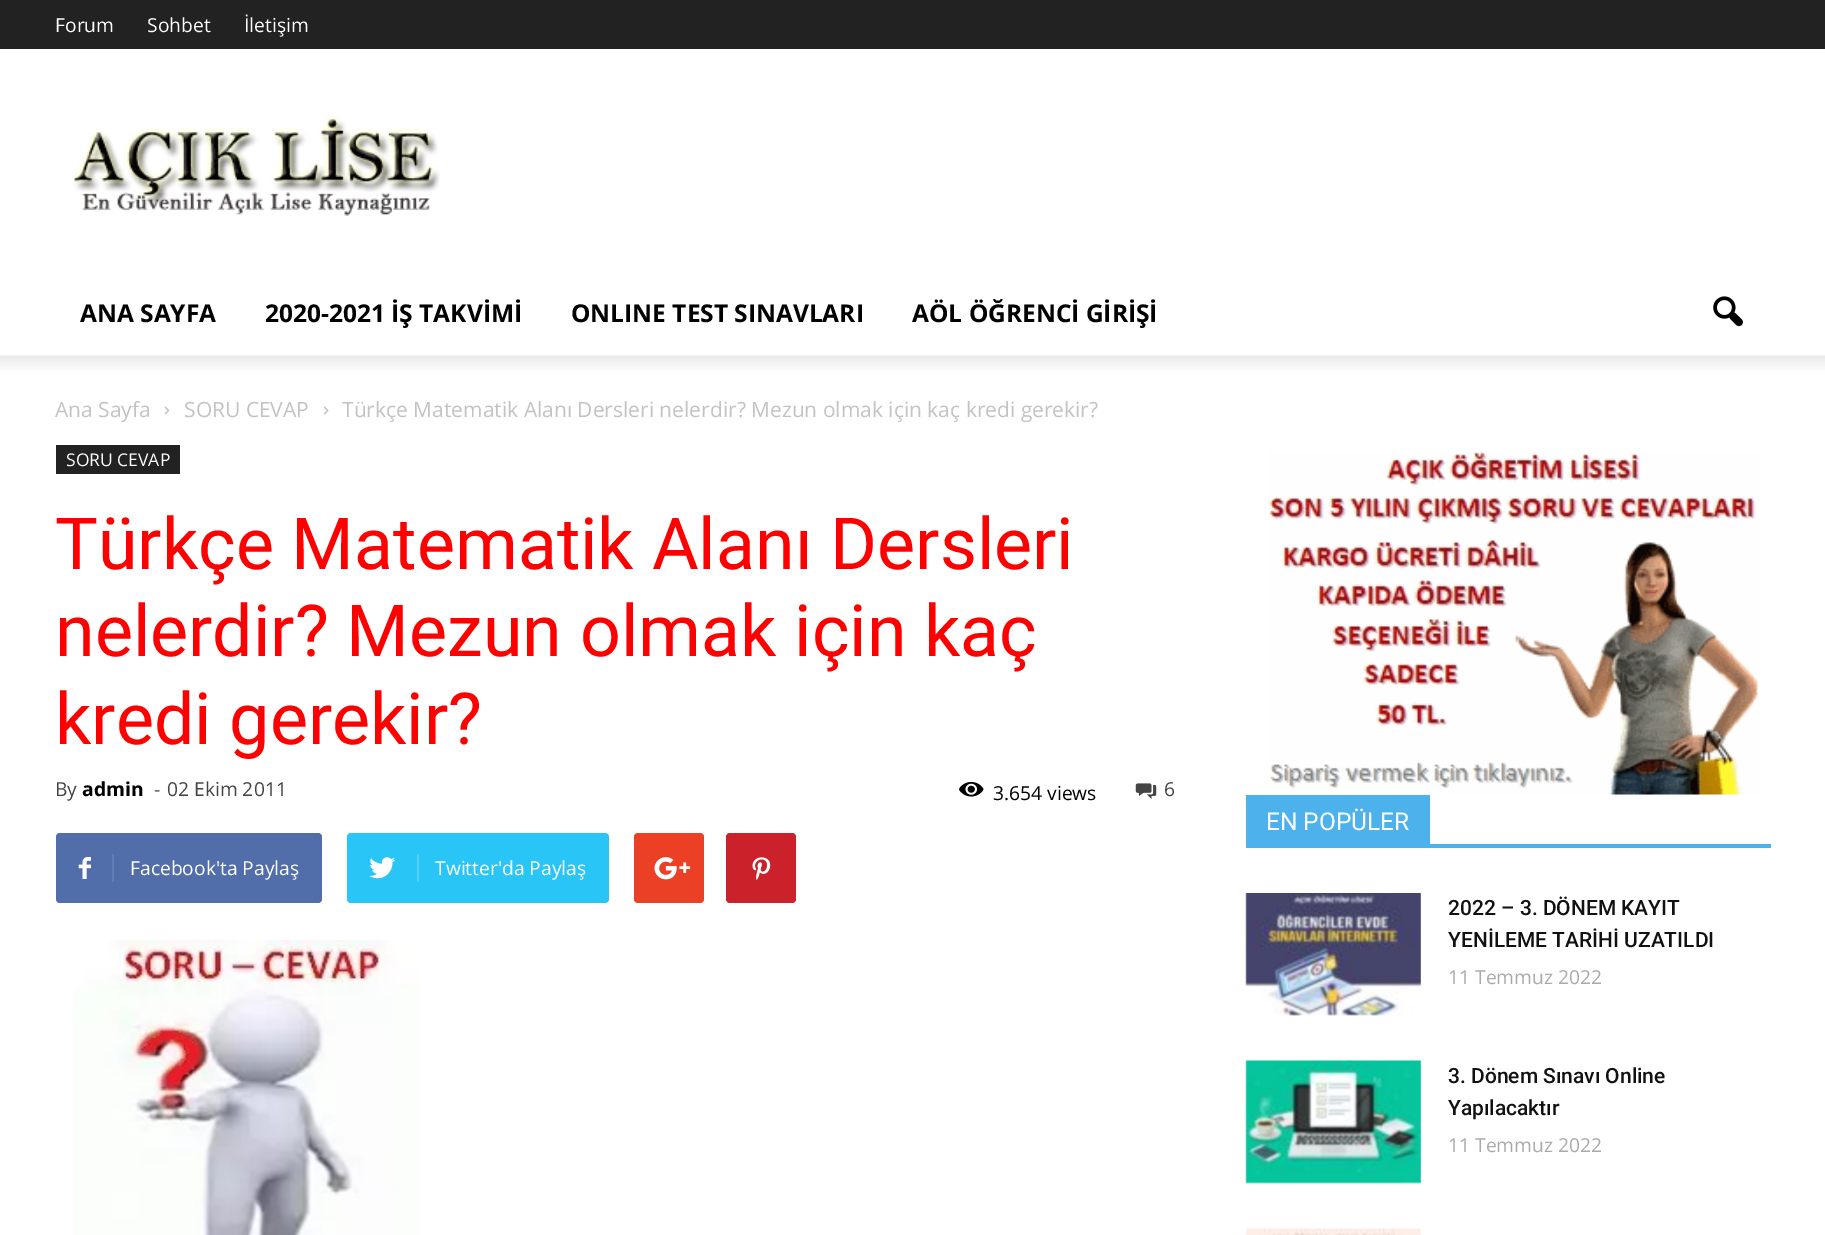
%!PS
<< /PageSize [1825 1235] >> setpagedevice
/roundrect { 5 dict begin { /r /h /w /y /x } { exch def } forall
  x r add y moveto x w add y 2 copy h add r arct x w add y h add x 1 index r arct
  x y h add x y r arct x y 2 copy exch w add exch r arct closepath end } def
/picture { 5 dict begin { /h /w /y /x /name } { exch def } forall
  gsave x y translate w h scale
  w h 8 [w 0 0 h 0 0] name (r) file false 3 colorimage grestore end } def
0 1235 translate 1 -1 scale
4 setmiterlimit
1 setgray
0 0 1825 1235 rectfill
0.133 setgray
0 0 1825 49 rectfill
/OpenSans-Regular [19.25 0 0 -19.25 0 0] selectfont
1 setgray
55 32 moveto (Forum) show
147 32 moveto (Sohbet) show
244 32 moveto (İletişim) show
(img1.rgb) 71 115 369 101 picture
/OpenSans-Bold [24.5 0 0 -24.5 0 0] selectfont
0 setgray
80 322 moveto (ANA SAYFA) show
265 322 moveto (2020-2021 İŞ TAKVİMİ) show
571 322 moveto (ONLINE TEST SINAVLARI) show
912 322 moveto (AÖL ÖĞRENCİ GİRİŞİ) show
(img2.rgb) 1713 296 30 31 picture
(img3.rgb) 0 355 1825 15 picture
/OpenSans-Regular [21 0 0 -21 0 0] selectfont
0.765 setgray
55 417 moveto (Ana Sayfa) show
(img4.rgb) 164 406 6 9 picture
184 417 moveto (SORU CEVAP) show
(img5.rgb) 323 406 6 9 picture
342 417 moveto (Türkçe Matematik Alanı Dersleri nelerdir? Mezun olmak için kaç kredi gerekir?) show
0.133 setgray
56 445 124 29 rectfill
/OpenSans-Regular [17.5 0 0 -17.5 0 0] selectfont
1 setgray
66 466 moveto (SORU CEVAP) show
/Roboto-Regular [71.75 0 0 -71.75 0 0] selectfont
1 0 0 setrgbcolor
55 569 moveto (Türkçe Matematik Alanı Dersleri) show
55 656 moveto (nelerdir? Mezun olmak için kaç) show
55 744 moveto (kredi gerekir?) show
/OpenSans-Regular [19.25 0 0 -19.25 0 0] selectfont
0.267 setgray
55 796 moveto (By) show
/OpenSans-Bold [19.25 0 0 -19.25 0 0] selectfont
0 setgray
82 796 moveto (admin) show
/OpenSans-Regular [19.25 0 0 -19.25 0 0] selectfont
0.267 setgray
154 796 moveto (-) show
167 796 moveto (02 Ekim 2011) show
(img6.rgb) 959 781 25 16 picture
0 setgray
993 800 moveto (3.654 views) show
(img7.rgb) 1135 783 22 16 picture
0.267 setgray
1164 796 moveto (6) show
0.318 0.431 0.671 setrgbcolor
56 833 266 70 4 roundrect fill
(img8.rgb) 78 857 13 22 picture
0.384 0.49 0.702 setrgbcolor
112 854 2 28 rectfill
1 setgray
130 875 moveto (Facebook'ta Paylaş) show
0.161 0.773 0.965 setrgbcolor
347 833 262 70 4 roundrect fill
(img9.rgb) 369 857 26 22 picture
0.329 0.82 0.973 setrgbcolor
417 854 2 28 rectfill
1 setgray
435 875 moveto (Twitter'da Paylaş) show
0.922 0.251 0.149 setrgbcolor
634 833 70 70 4 roundrect fill
(img10.rgb) 654 857 37 23 picture
0.792 0.129 0.165 setrgbcolor
726 833 70 70 4 roundrect fill
(img11.rgb) 752 857 19 23 picture
(img12.rgb) 73 939 347 296 picture
(img13.rgb) 1268 451 491 344 picture
0.302 0.698 0.925 setrgbcolor
1246 844 525 4 rectfill
1246 795 184 49 rectfill
/Roboto-Regular [24.5 0 0 -24.5 0 0] selectfont
1 setgray
1266 830 moveto (EN POPÜLER) show
(img14.rgb) 1245 893 176 123 picture
/Roboto-Medium [21 0 0 -21 0 0] selectfont
0.067 setgray
1448 915 moveto (2022 – 3. DÖNEM KAYIT) show
1448 947 moveto (YENİLEME TARİHİ UZATILDI) show
/OpenSans-Regular [19.25 0 0 -19.25 0 0] selectfont
0.667 setgray
1448 984 moveto (11 Temmuz 2022) show
(img15.rgb) 1245 1060 176 124 picture
/Roboto-Medium [21 0 0 -21 0 0] selectfont
0.067 setgray
1448 1083 moveto (3. Dönem Sınavı Online) show
1448 1115 moveto (Yapılacaktır) show
/OpenSans-Regular [19.25 0 0 -19.25 0 0] selectfont
0.667 setgray
1448 1152 moveto (11 Temmuz 2022) show
(img16.rgb) 1245 1228 176 7 picture
showpage
